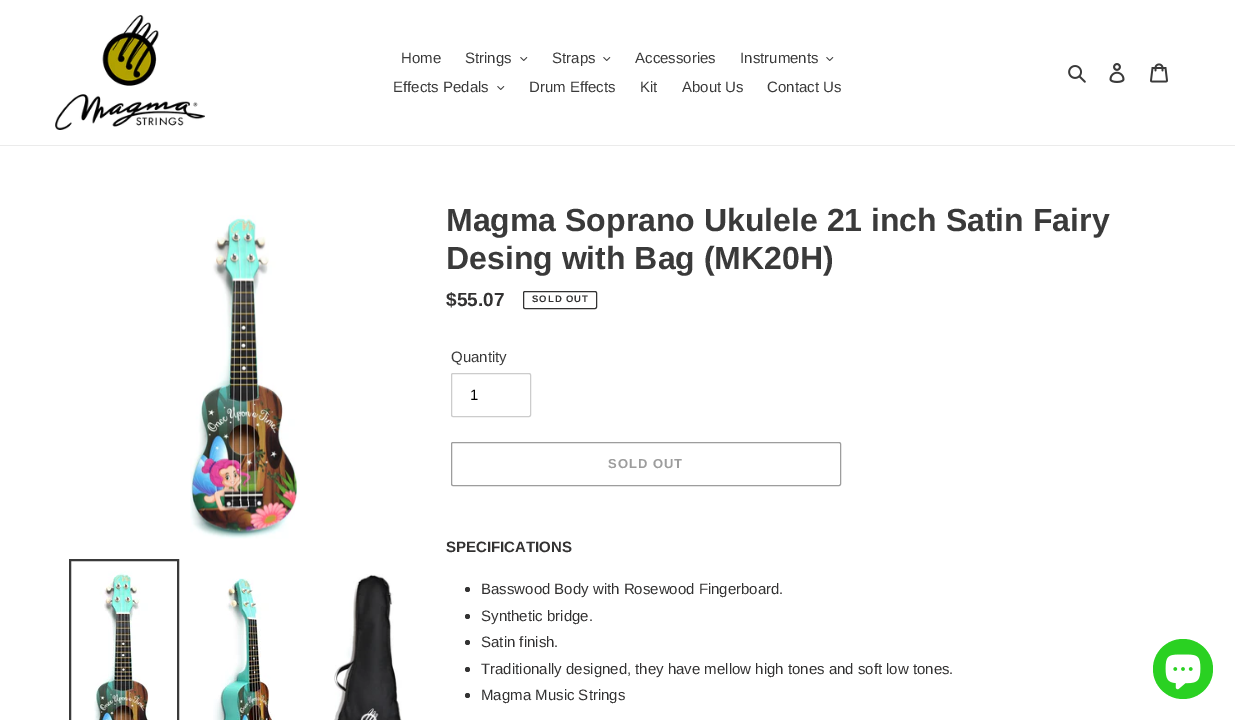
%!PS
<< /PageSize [1235 720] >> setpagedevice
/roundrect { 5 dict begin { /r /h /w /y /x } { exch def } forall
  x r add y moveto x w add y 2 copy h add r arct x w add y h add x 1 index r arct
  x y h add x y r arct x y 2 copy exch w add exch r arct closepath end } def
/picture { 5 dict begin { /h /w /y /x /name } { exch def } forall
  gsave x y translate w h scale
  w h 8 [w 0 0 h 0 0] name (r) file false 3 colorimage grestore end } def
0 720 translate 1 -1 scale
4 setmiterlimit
1 setgray
0 0 1235 720 rectfill
0.922 setgray
0 145 1235 1 rectfill
(img1.rgb) 55 15 150 115 picture
/LiberationSans-Regular [15 0 0 -15 0 0] selectfont
0.227 setgray
401 63 moveto (Home) show
465 63 moveto (Strings) show
(img2.rgb) 520 57 8 4 picture
552 63 moveto (Straps) show
(img2.rgb) 603 57 8 4 picture
635 63 moveto (Accessories) show
740 63 moveto (Instruments) show
(img2.rgb) 826 57 8 4 picture
393 92 moveto (Effects Pedals) show
(img2.rgb) 497 86 8 4 picture
529 92 moveto (Drum Effects) show
640 92 moveto (Kit) show
682 92 moveto (About Us) show
767 92 moveto (Contact Us) show
(img3.rgb) 1068 65 18 18 picture
(img4.rgb) 1109 63 16 20 picture
(img5.rgb) 1150 63 18 20 picture
(img6.rgb) 190 215 110 324 picture
2 setlinewidth
70 560 108 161 rectstroke
(img7.rgb) 94 571 55 149 picture
(img8.rgb) 213 578 62 142 picture
(img9.rgb) 334 574 68 146 picture
/LiberationSans-Bold [32 0 0 -32 0 0] selectfont
446 231 moveto (Magma Soprano Ukulele 21 inch Satin Fairy) show
446 269 moveto (Desing with Bag \(MK20H\)) show
/LiberationSans-Bold [19 0 0 -19 0 0] selectfont
0.2 0.196 0.196 setrgbcolor
446 306 moveto ($55.07) show
1 setlinewidth
523.5 291.5 73 17 1.5 roundrect stroke
/LiberationSans-Bold [9.5 0 0 -9.5 0 0] selectfont
532 302 moveto 1 0 (SOLD OUT) ashow
/LiberationSans-Regular [15 0 0 -15 0 0] selectfont
0.227 setgray
451 362 moveto (Quantity) show
0.8 setgray
451.5 373.5 79 43 1.5 roundrect stroke
0 setgray
470 400 moveto (1) show
0.616 setgray
451.5 442.5 389 43 1.5 roundrect stroke
/LiberationSans-Bold [13 0 0 -13 0 0] selectfont
608 468 moveto 1 0 (SOLD OUT) ashow
/LiberationSans-Bold [15 0 0 -15 0 0] selectfont
0.2 0.196 0.196 setrgbcolor
446 552 moveto (SPECIFICATIONS) show
newpath 467.5 589.5 2.5 0 360 arc closepath fill
/LiberationSans-Regular [15 0 0 -15 0 0] selectfont
481 594 moveto (Basswood Body with Rosewood Fingerboard.) show
newpath 467.5 616.5 2.5 0 360 arc closepath fill
481 621 moveto (Synthetic bridge.) show
newpath 467.5 642.5 2.5 0 360 arc closepath fill
481 647 moveto (Satin finish.) show
newpath 467.5 669.5 2.5 0 360 arc closepath fill
481 674 moveto (Traditionally designed, they have mellow high tones and soft low tones.) show
newpath 467.5 695.5 2.5 0 360 arc closepath fill
481 700 moveto (Magma Music Strings) show
0.165 0.82 0.133 setrgbcolor
newpath 1183 669 30 0 360 arc closepath fill
(img10.rgb) 1165 654 36 36 picture
showpage
